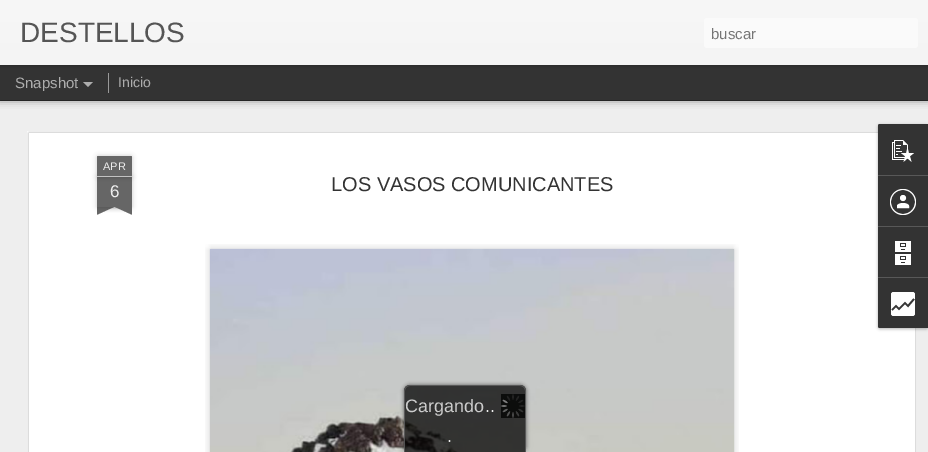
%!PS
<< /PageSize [928 452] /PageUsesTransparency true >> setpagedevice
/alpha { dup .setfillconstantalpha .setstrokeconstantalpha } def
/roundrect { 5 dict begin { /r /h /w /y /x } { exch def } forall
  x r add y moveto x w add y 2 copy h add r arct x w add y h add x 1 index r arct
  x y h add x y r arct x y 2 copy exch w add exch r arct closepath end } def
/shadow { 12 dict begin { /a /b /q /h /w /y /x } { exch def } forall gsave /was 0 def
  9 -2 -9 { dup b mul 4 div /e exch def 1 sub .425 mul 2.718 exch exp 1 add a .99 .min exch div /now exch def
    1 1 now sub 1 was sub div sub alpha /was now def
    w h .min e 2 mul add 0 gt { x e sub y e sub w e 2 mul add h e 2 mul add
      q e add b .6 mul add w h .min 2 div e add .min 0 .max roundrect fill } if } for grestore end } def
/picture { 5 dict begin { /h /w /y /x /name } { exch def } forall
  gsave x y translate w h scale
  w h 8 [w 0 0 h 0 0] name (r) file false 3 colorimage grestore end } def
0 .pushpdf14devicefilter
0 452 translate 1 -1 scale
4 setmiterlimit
0.2 setgray
0 0 928 452 rectfill
0.933 setgray
0 101 928 351 rectfill
0 setgray
0 65 928 35 0 4 0.5 shadow
0.2 setgray
0 65 928 35 rectfill
0.6 setgray
108 73 1 20 rectfill
0 setgray
0 0 928 65 0 2.5 0.3 shadow
gsave newpath 0 0 moveto 928 0 lineto 928 65 lineto 0 65 lineto closepath clip newpath
<< /ShadingType 2 /ColorSpace /DeviceRGB /Coords [0 0 0 65] /Extend [true true] /Function << /FunctionType 2 /Domain [0 1] /C0 [0.969 0.969 0.969] /C1 [0.957 0.957 0.957] /N 1 >> >> shfill grestore
/LiberationSans-Regular [28 0 0 -28 0 0] selectfont
0.333 setgray
20 42 moveto (DESTELLOS) show
0.98 setgray
704 18 214 30 3 roundrect fill
/LiberationSans-Regular [15 0 0 -15 0 0] selectfont
0.459 setgray
711 39 moveto (buscar) show
0.678 setgray
15 88 moveto (Snapshot) show
newpath 83 82 moveto 93 82 lineto 88 87 lineto closepath fill
/LiberationSans-Regular [14 0 0 -14 0 0] selectfont
118 87 moveto (Inicio) show
1 setgray
27 131 890 321 rectfill
(img1.rgb) 27 131 890 321 picture
0 setgray
97 177 35 30 0 2.5 0.2 shadow
0.4 setgray
97 177 35 30 rectfill
0 setgray
97 156 35 21 1 2.5 0.2 shadow
0.4 setgray
newpath 98 156 moveto 131 156 lineto 131.5 156 132 156.5 132 157 curveto 132 177 lineto 97 177 lineto 97 157 lineto 97 156.5 97.5 156 98 156 curveto closepath fill
0.761 setgray
97 176 35 1 rectfill
/LiberationSans-Regular [11 0 0 -11 0 0] selectfont
0.933 setgray
103 170 moveto (APR) show
/LiberationSans-Regular [17 0 0 -17 0 0] selectfont
110 197 moveto (6) show
gsave
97 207 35 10 rectclip
0 setgray
88 197 50 10 0 2.5 0.2 shadow
grestore
gsave
97 207 35 10 rectclip
0.4 setgray
newpath 88 208 moveto 134 187 lineto 138 196 lineto 92 217 lineto closepath fill
grestore
gsave
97 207 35 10 rectclip
0 setgray
91 197 50 10 0 2.5 0.2 shadow
grestore
gsave
97 207 35 10 rectclip
0.4 setgray
newpath 95 187 moveto 141 208 lineto 137 217 lineto 91 196 lineto closepath fill
grestore
/LiberationSans-Regular [20 0 0 -20 0 0] selectfont
0.2 setgray
331 191 moveto (LOS VASOS COMUNICANTES) show
(img2.rgb) 205 244 534 208 picture
(img3.rgb) 209 248 526 204 picture
0 setgray
878 125 50 204 2 1.5 0.3 shadow
0.2 setgray
newpath 880 124 moveto 928 124 lineto 928 328 lineto 880 328 lineto 879 328 878 327 878 326 curveto 878 126 lineto 878 125 879 124 880 124 curveto closepath fill
newpath 880 124 moveto 928 124 lineto 928 175 lineto 878 175 lineto 878 126 lineto 878 125 879 124 880 124 curveto closepath fill
(img4.rgb) 892 140 22 22 picture
0.345 setgray
878 175 50 1 rectfill
(img5.rgb) 890 189 26 26 picture
878 226 50 1 rectfill
(img6.rgb) 895 241 16 24 picture
0.2 setgray
newpath 878 277 moveto 928 277 lineto 928 328 lineto 880 328 lineto 879 328 878 327 878 326 curveto closepath fill
0.345 setgray
878 277 50 1 rectfill
(img7.rgb) 891 292 24 24 picture
gsave
newpath 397 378 moveto 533 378 lineto 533 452 lineto 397 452 lineto closepath 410 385 moveto 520 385 lineto 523.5 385 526 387.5 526 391 curveto 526 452 lineto 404 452 lineto 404 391 lineto 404 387.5 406.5 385 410 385 curveto closepath eoclip newpath
0.2 setgray
404 385 122 67 6 2 0.75 shadow
grestore
0.75 alpha
0 setgray
newpath 410 385 moveto 520 385 lineto 523.5 385 526 387.5 526 391 curveto 526 452 lineto 404 452 lineto 404 391 lineto 404 387.5 406.5 385 410 385 curveto closepath fill
0.4 setgray
newpath 410 385 moveto 520 385 lineto 523 385 526 388 526 391 curveto 526 452 lineto 404 452 lineto 404 391 lineto 404 388 407 385 410 385 curveto closepath 410 386 moveto 520 386 lineto 523 386 525 388 525 391 curveto 525 452 lineto 405 452 lineto 405 391 lineto 405 388 407 386 410 386 curveto closepath eofill
1 alpha
(img8.rgb) 501 394 24 24 picture
/LiberationSans-Regular [18 0 0 -18 0 0] selectfont
0.8 setgray
405 412 moveto (Cargando) show
0.933 setgray
485 412 moveto (..) show
447 442 moveto (.) show
.poppdf14devicefilter showpage
